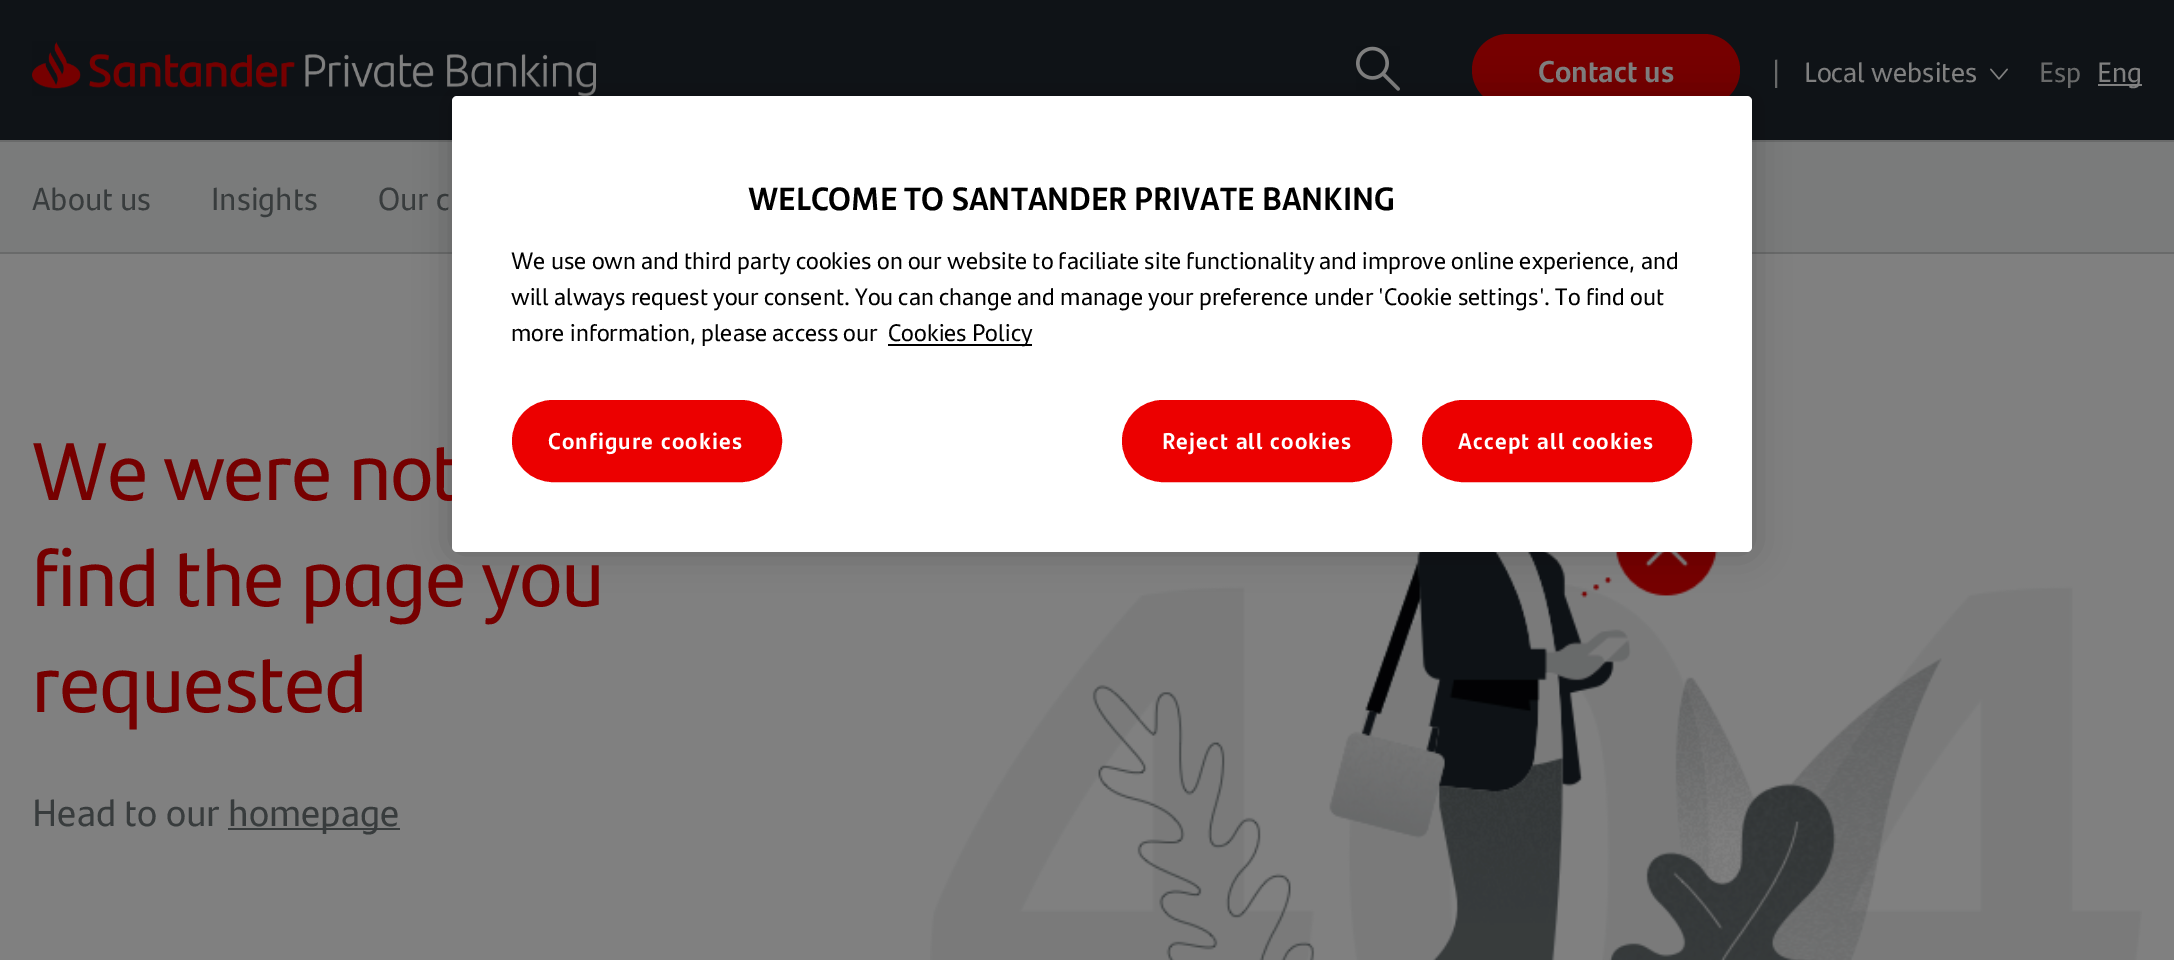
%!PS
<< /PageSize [2174 960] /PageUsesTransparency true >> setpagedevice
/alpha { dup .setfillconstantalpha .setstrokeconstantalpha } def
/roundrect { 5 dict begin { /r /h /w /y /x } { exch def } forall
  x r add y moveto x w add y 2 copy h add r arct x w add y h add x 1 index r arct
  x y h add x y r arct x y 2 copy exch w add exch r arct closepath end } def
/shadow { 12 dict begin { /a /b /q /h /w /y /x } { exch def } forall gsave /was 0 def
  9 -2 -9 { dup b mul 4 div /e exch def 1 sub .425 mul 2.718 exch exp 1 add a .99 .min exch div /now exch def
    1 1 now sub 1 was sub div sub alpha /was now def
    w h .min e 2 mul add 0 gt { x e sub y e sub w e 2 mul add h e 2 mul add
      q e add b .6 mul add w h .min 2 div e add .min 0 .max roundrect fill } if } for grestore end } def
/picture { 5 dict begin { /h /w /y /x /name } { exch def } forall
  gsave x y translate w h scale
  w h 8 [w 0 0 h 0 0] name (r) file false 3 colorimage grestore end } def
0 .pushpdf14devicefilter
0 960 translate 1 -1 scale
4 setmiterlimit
0.502 setgray
0 0 2174 960 rectfill
0.059 0.075 0.09 setrgbcolor
0 0 2174 140 rectfill
(img1.rgb) 32 41 564 55 picture
(img2.rgb) 1356 46 44 45 picture
0.463 0 0 setrgbcolor
1472 34 268 72 36 roundrect fill
/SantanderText-Bold [30 0 0 -30 0 0] selectfont
0.502 setgray
1538 82 moveto (Contact us) show
/SantanderText-Regular [28 0 0 -28 0 0] selectfont
0.412 0.416 0.416 setrgbcolor
1772 82 moveto (|) show
0.502 setgray
1804 82 moveto (Local websites) show
(img3.rgb) 1990 68 18 12 picture
0.412 0.416 0.416 setrgbcolor
2039 82 moveto (Esp) show
0.502 setgray
2098 84 44 2 rectfill
2097 82 moveto (Eng) show
0.478 0.482 0.482 setrgbcolor
0 142 2174 110 rectfill
0.412 0.416 0.416 setrgbcolor
0 140 2174 2 rectfill
0 252 2174 2 rectfill
/SantanderText-Regular [32 0 0 -32 0 0] selectfont
0.22 0.235 0.239 setrgbcolor
32 210 moveto (About us) show
211 210 moveto (Insights) show
378 210 moveto (Our c) show
(img4.rgb) 930 552 1212 408 picture
0 setgray
452 96 1300 456 5 18 0.2 shadow
/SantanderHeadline-Regular [82 0 0 -82 0 0] selectfont
0.463 0 0 setrgbcolor
32 500 moveto (We were not) show
32 606 moveto (find the page you) show
1 setgray
452 96 1300 456 5 roundrect fill
/SantanderText-Bold [32.2 0 0 -32.2 0 0] selectfont
0 setgray
748 210 moveto (WELCOME TO SANTANDER PRIVATE BANKING) show
/SantanderText-Regular [24 0 0 -24 0 0] selectfont
511 269 moveto (We use own and third party cookies on our website to faciliate site functionality and improve online experience, and) show
511 305 moveto (will always request your consent. You can change and manage your preference under 'Cookie settings'. To find out) show
511 341 moveto (more information, please access our) show
888 344 144 2 rectfill
888 341 moveto (Cookies Policy) show
0.925 0 0 setrgbcolor
513 401 268 80 40 roundrect gsave fill grestore
2 setlinewidth
stroke
/SantanderText-Bold [22.75 0 0 -22.75 0 0] selectfont
1 setgray
548 449 moveto 1.1 0 (Configure cookies) ashow
0.925 0 0 setrgbcolor
1123 401 268 80 40 roundrect gsave fill grestore
stroke
1 setgray
1162 449 moveto 1.1 0 (Reject all cookies) ashow
0.925 0 0 setrgbcolor
1423 401 268 80 40 roundrect gsave fill grestore
stroke
1 setgray
1458 449 moveto 1.1 0 (Accept all cookies) ashow
/SantanderHeadline-Regular [82 0 0 -82 0 0] selectfont
0.463 0 0 setrgbcolor
32 712 moveto (requested) show
/SantanderText-Regular [38 0 0 -38 0 0] selectfont
0.22 0.235 0.239 setrgbcolor
32 826 moveto (Head to our) show
228 828 172 2 rectfill
228 826 moveto (homepage) show
.poppdf14devicefilter showpage
